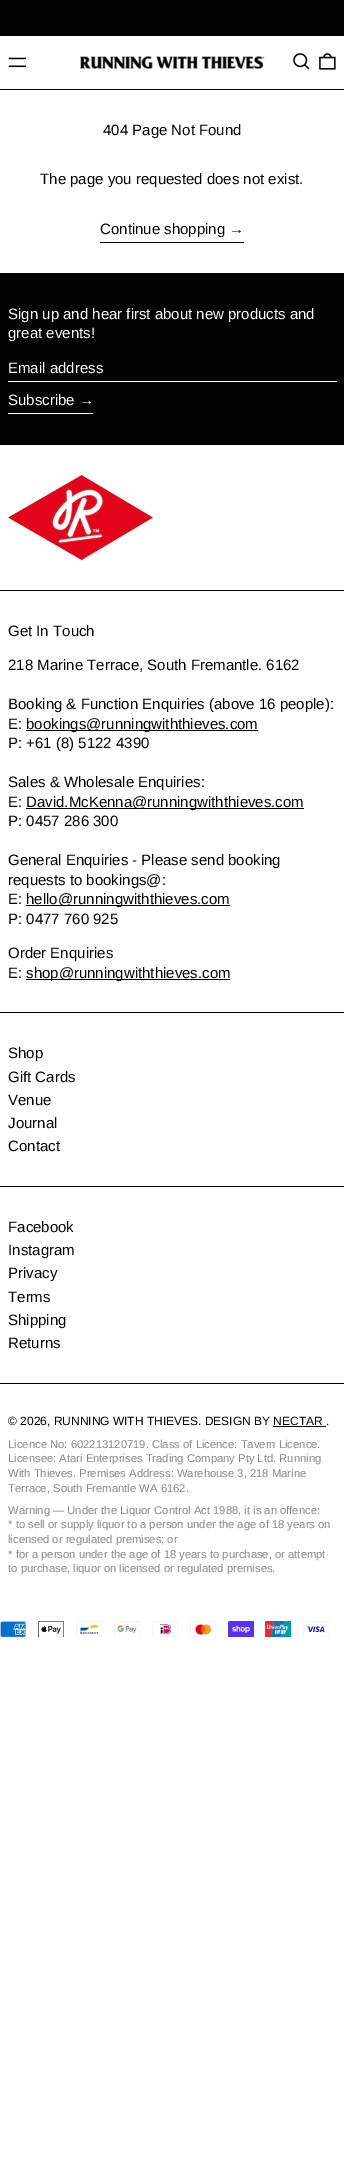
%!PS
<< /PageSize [344 2165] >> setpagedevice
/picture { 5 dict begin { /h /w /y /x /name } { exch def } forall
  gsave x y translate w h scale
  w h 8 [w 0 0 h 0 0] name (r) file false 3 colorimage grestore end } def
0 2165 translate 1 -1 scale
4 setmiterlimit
1 setgray
0 0 344 2165 rectfill
0.012 setgray
0 0 344 36 rectfill
0 89 344 1 rectfill
(img1.rgb) 8 57 18 11 picture
(img2.rgb) 79 56 186 13 picture
(img3.rgb) 293 53 17 17 picture
(img4.rgb) 319 53 17 17 picture
/LiberationSans-Regular [15 0 0 -15 0 0] selectfont
103 135 moveto (404 Page Not Found) show
40 184 moveto (The page you requested does not exist.) show
100 242 144 1 rectfill
100 234 moveto (Continue shopping →) show
0 273 344 172 rectfill
1 setgray
8 319 moveto (Sign up and hear first about new products and) show
8 338 moveto (great events!) show
8 381 329 1 rectfill
8 373 moveto (Email address) show
8 413 85 1 rectfill
8 405 moveto (Subscribe →) show
0.012 setgray
0 590 344 597 rectfill
(img5.rgb) 8 475 145 85 picture
1 setgray
0 591 344 421 rectfill
0.012 setgray
8 636 moveto (Get In Touch) show
8 670 moveto (218 Marine Terrace, South Fremantle. 6162) show
8 709 moveto (Booking & Function Enquiries \(above 16 people\):) show
8 729 moveto (E:) show
26 730 232 1 rectfill
26 729 moveto (bookings@runningwiththieves.com) show
8 748 moveto (P: +61 \(8\) 5122 4390) show
8 787 moveto (Sales & Wholesale Enquiries:) show
8 807 moveto (E:) show
26 808 278 1 rectfill
26 807 moveto (David.McKenna@runningwiththieves.com) show
8 826 moveto (P: 0457 286 300) show
8 865 moveto (General Enquiries - Please send booking) show
8 885 moveto (requests to bookings@:) show
8 904 moveto (E:) show
26 905 204 1 rectfill
26 904 moveto (hello@runningwiththieves.com) show
8 924 moveto (P: 0477 760 925) show
8 958 moveto (Order Enquiries) show
8 978 moveto (E:) show
26 979 204 1 rectfill
26 978 moveto (shop@runningwiththieves.com) show
1 setgray
0 1013 344 173 rectfill
0.012 setgray
8 1058 moveto (Shop) show
8 1082 moveto (Gift Cards) show
8 1105 moveto (Venue) show
8 1128 moveto (Journal) show
8 1151 moveto (Contact) show
8 1232 moveto (Facebook) show
8 1255 moveto (Instagram) show
8 1278 moveto (Privacy) show
8 1302 moveto (Terms) show
8 1325 moveto (Shipping) show
8 1348 moveto (Returns) show
0 1383 344 1 rectfill
/LiberationSans-Regular [12 0 0 -12 0 0] selectfont
8 1425 moveto (© 2026, RUNNING WITH THIEVES. DESIGN BY NECTAR .) show
273 1426 53 1 rectfill
/LiberationSans-Regular [11.25 0 0 -11.25 0 0] selectfont
0.533 setgray
8 1448 moveto (Licence No: 602213120719. Class of Licence: Tavern Licence.) show
8 1462 moveto (Licensee: Atari Enterprises Trading Company Pty Ltd. Running) show
8 1477 moveto (With Thieves. Premises Address: Warehouse 3, 218 Marine) show
8 1492 moveto (Terrace, South Fremantle WA 6162.) show
8 1514 moveto (Warning — Under the Liquor Control Act 1988, it is an offence:) show
8 1528 moveto (* to sell or supply liquor to a person under the age of 18 years on) show
8 1543 moveto (licensed or regulated premises; or) show
8 1558 moveto (* for a person under the age of 18 years to purchase, or attempt) show
8 1572 moveto (to purchase, liquor on licensed or regulated premises.) show
(img6.rgb) 0 1621 26 16 picture
(img7.rgb) 38 1621 26 16 picture
(img8.rgb) 76 1621 26 16 picture
(img9.rgb) 114 1621 26 16 picture
(img10.rgb) 152 1621 26 16 picture
(img11.rgb) 190 1621 26 16 picture
(img12.rgb) 228 1621 26 16 picture
(img13.rgb) 265 1621 27 16 picture
(img14.rgb) 303 1621 26 16 picture
showpage
